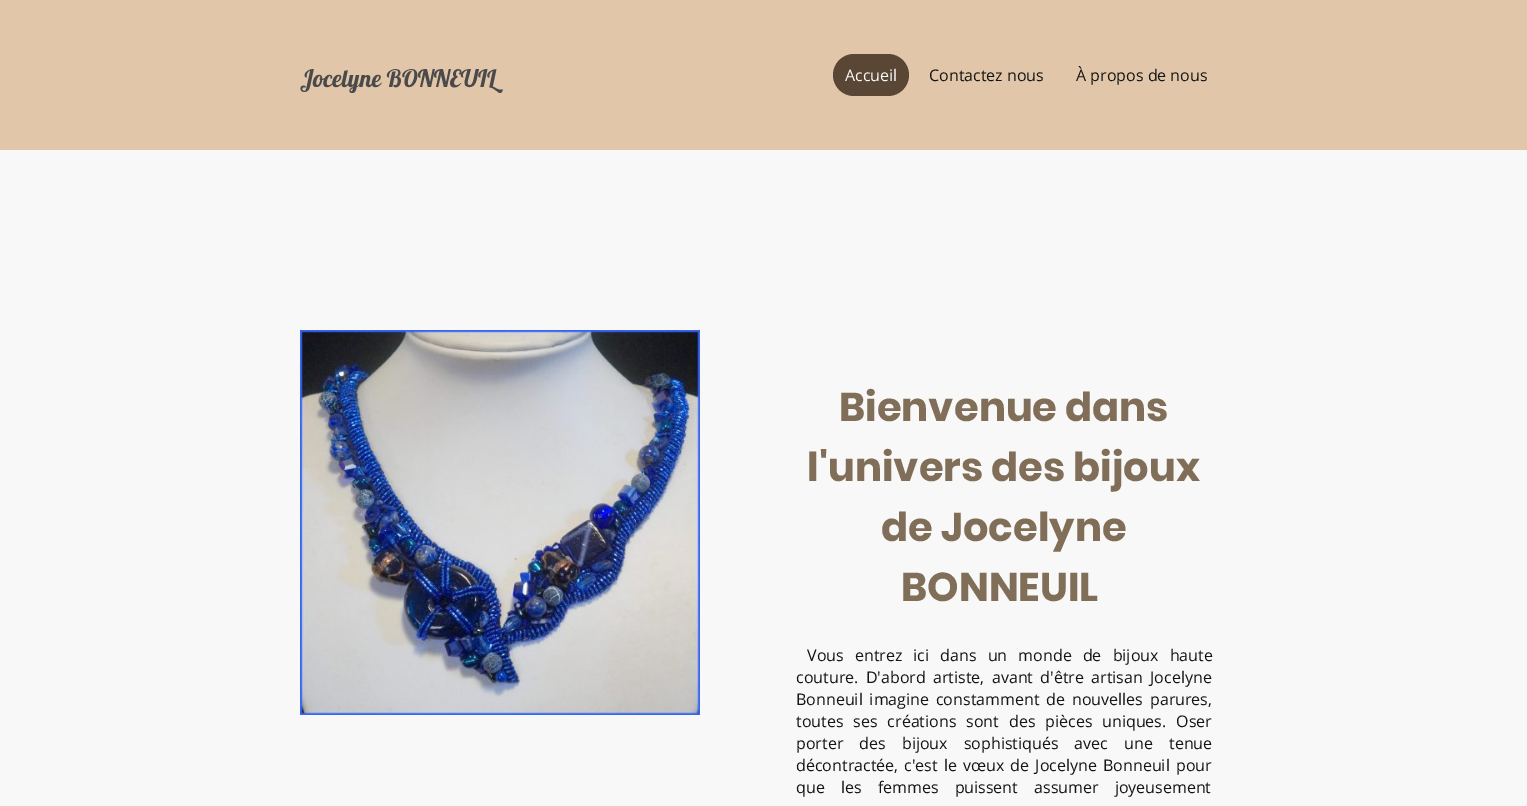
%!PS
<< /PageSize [1527 806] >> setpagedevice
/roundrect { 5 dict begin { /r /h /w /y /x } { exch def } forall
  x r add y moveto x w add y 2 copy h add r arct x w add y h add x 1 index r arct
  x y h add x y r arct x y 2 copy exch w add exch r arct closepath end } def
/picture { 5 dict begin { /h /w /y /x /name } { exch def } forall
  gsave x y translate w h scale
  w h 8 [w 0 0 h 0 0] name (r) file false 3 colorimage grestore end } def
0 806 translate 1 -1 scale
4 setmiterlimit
0.882 0.776 0.663 setrgbcolor
0 0 1527 806 rectfill
(img1.rgb) 300 69 203 24 picture
0.349 0.275 0.208 setrgbcolor
833 54 76 42 21 roundrect fill
/OpenSans-Regular [16 0 0 -16 0 0] selectfont
0.973 setgray
845 81 moveto (Accueil) show
0.082 setgray
929 81 moveto (Contactez nous) show
1076 81 moveto (À propos de nous) show
0.973 setgray
0 150 1527 656 rectfill
(img2.rgb) 300 330 400 385 picture
/Poppins-Bold [40 0 0 -40 0 0] selectfont
0.506 0.431 0.349 setrgbcolor
839 421 moveto (Bienvenue dans) show
807 481 moveto (l'univers des bijoux) show
881 541 moveto (de Jocelyne) show
901 601 moveto (BONNEUIL) show
/OpenSans-Regular [16 0 0 -16 0 0] selectfont
0.082 setgray
807 661 moveto 7 0 32 (Vous entrez ici dans un monde de bijoux haute) widthshow
796 683 moveto 3.25 0 32 (couture. D'abord artiste, avant d'être artisan Jocelyne) widthshow
796 705 moveto 2.75 0 32 (Bonneuil imagine constamment de nouvelles parures,) widthshow
796 727 moveto 5.75 0 32 (toutes ses créations sont des pièces uniques. Oser) widthshow
796 749 moveto 12 0 32 (porter des bijoux sophistiqués avec une tenue) widthshow
796 771 moveto 2 0 32 (décontractée, c'est le vœux de Jocelyne Bonneuil pour) widthshow
796 793 moveto 12 0 32 (que les femmes puissent assumer joyeusement) widthshow
showpage
